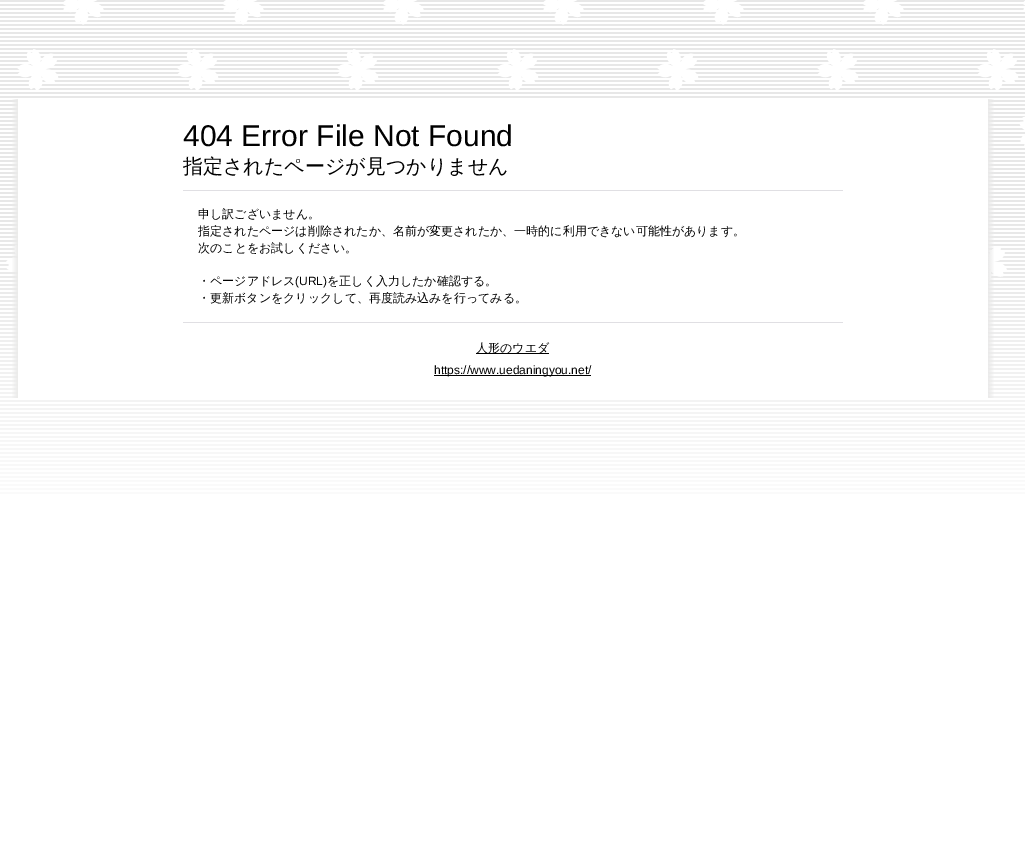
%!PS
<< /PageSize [1025 865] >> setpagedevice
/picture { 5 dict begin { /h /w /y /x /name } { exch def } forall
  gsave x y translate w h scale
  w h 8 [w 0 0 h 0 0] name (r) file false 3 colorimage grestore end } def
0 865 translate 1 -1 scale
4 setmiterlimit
1 setgray
0 0 1025 865 rectfill
(img1.rgb) 0 0 1025 494 picture
(img2.rgb) 12 99 982 299 picture
/LiberationSans-Regular [30 0 0 -30 0 0] selectfont
0 setgray
183 146 moveto (404 Error File Not Found) show
/WenQuanYiZenHei-Medium [20 0 0 -20 0 0] selectfont
183 173 moveto (指定されたページが見つかりません) show
0.878 0.875 0.89 setrgbcolor
183 190 660 1 rectfill
183 322 660 1 rectfill
/WenQuanYiZenHei-Medium [12 0 0 -12 0 0] selectfont
0 setgray
198 218 moveto (申し訳ございません。) show
198 235 moveto (指定されたページは削除されたか、名前が変更されたか、一時的に利用できない可能性があります。) show
198 252 moveto (次のことをお試しください。) show
198 285 moveto (・ページアドレス) show
/LiberationSans-Regular [12 0 0 -12 0 0] selectfont
295 285 moveto (\(URL\)) show
/WenQuanYiZenHei-Medium [12 0 0 -12 0 0] selectfont
327 285 moveto (を正しく入力したか確認する。) show
198 302 moveto (・更新ボタンをクリックして、再度読み込みを行ってみる。) show
476 353 73 1 rectfill
476 352 moveto (人形のウエダ) show
434 375 157 1 rectfill
/LiberationSans-Regular [12 0 0 -12 0 0] selectfont
434 374 moveto (https://www.uedaningyou.net/) show
showpage
